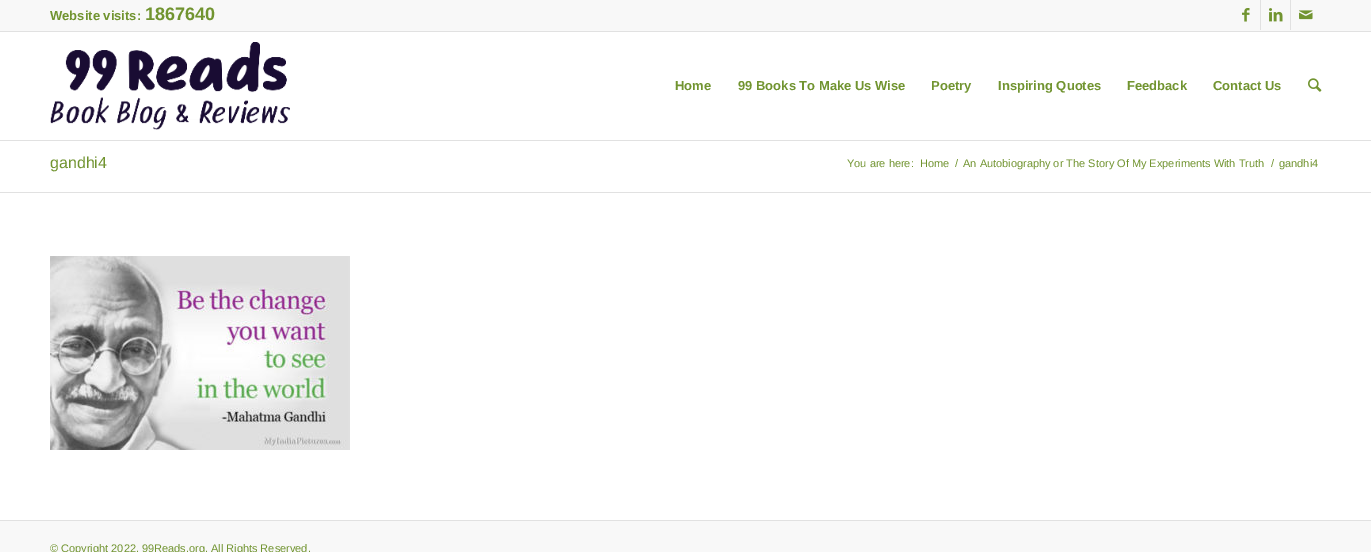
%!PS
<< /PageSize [1371 552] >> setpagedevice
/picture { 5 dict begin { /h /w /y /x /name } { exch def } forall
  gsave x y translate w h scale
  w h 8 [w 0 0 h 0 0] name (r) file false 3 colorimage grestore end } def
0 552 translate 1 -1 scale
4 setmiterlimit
1 setgray
0 0 1371 552 rectfill
0.973 setgray
0 0 1371 31 rectfill
0.882 setgray
0 31 1371 1 rectfill
/LiberationSans-Bold [13 0 0 -13 0 0] selectfont
0.443 0.58 0.188 setrgbcolor
50 20 moveto (Website visits:) show
/LiberationSans-Bold [18 0 0 -18 0 0] selectfont
145 20 moveto (1867640) show
0.882 setgray
1260 0 1 30 rectfill
(img1.rgb) 1242 8 8 14 picture
1290 0 1 30 rectfill
(img2.rgb) 1269 8 14 14 picture
(img3.rgb) 1299 10 14 10 picture
0 140 1371 1 rectfill
(img4.rgb) 50 42 240 88 picture
/LiberationSans-Bold [13 0 0 -13 0 0] selectfont
0.443 0.58 0.188 setrgbcolor
675 90 moveto (Home) show
738 90 moveto (99 Books To Make Us Wise) show
931 90 moveto (Poetry) show
998 90 moveto (Inspiring Quotes) show
1127 90 moveto (Feedback) show
1213 90 moveto (Contact Us) show
(img5.rgb) 1308 78 14 14 picture
/LiberationSans-Regular [16 0 0 -16 0 0] selectfont
50 168 moveto (gandhi4) show
/LiberationSans-Regular [11 0 0 -11 0 0] selectfont
847 167 moveto (You are here:) show
920 167 moveto (Home) show
955 167 moveto (/) show
963 167 moveto (An Autobiography or The Story Of My Experiments With Truth) show
1271 167 moveto (/) show
1279 167 moveto (gandhi4) show
0.882 setgray
0 192 1371 1 rectfill
(img6.rgb) 50 256 300 194 picture
0.973 setgray
0 521 1371 31 rectfill
0.882 setgray
0 520 1371 1 rectfill
0.443 0.58 0.188 setrgbcolor
50 552 moveto (© Copyright 2022. 99Reads.org. All Rights Reserved.) show
showpage
